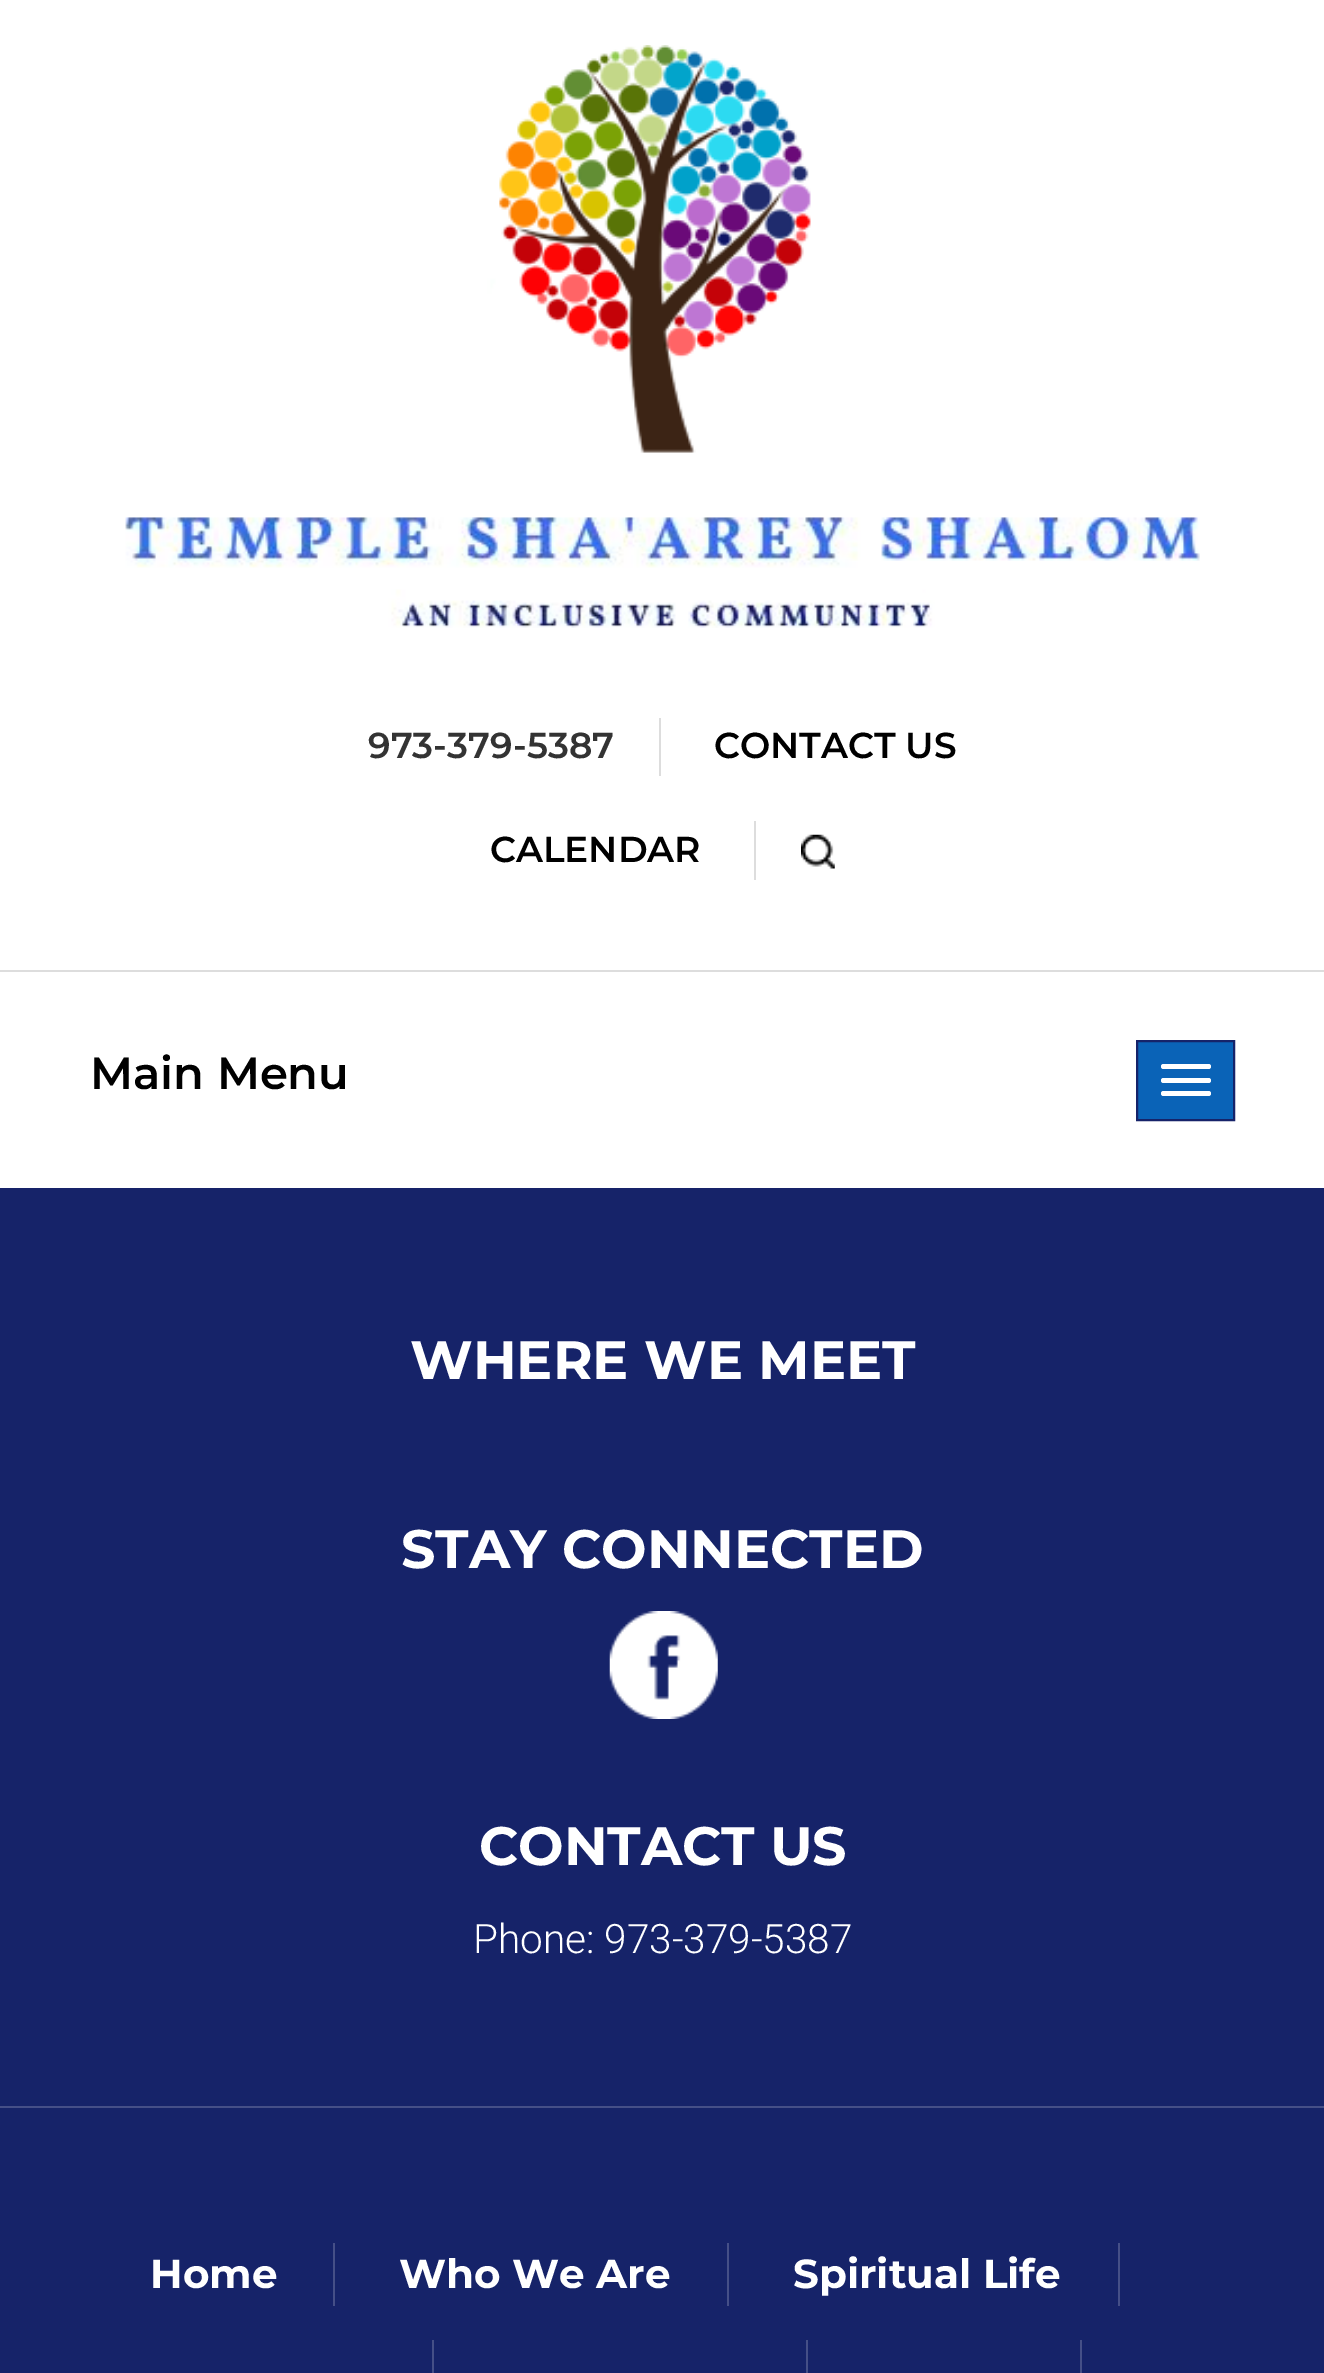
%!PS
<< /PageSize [1324 2373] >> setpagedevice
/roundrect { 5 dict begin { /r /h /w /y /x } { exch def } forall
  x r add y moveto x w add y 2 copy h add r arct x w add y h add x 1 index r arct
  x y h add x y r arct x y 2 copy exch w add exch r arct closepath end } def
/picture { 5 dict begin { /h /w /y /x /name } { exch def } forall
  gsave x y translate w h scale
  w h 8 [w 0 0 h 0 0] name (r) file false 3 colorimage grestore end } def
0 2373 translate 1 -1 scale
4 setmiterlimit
0.086 0.137 0.412 setrgbcolor
0 0 1324 2373 rectfill
1 setgray
0 0 1324 970 rectfill
(img1.rgb) 125 45 1075 583 picture
0.867 setgray
659 718 2 58 rectfill
/Montserrat-SemiBold [36 0 0 -36 0 0] selectfont
0.2 setgray
368 758 moveto (973-379-5387) show
0 setgray
714 758 moveto (CONTACT US) show
490 862 moveto (CALENDAR) show
0.867 setgray
754 821 2 59 rectfill
(img2.rgb) 801 834 34 35 picture
1 setgray
0 972 1324 216 rectfill
0.867 setgray
0 970 1324 2 rectfill
/Montserrat-SemiBold [45 0 0 -45 0 0] selectfont
0 setgray
90 1089 moveto (Main Menu) show
0.039 0.388 0.718 setrgbcolor
newpath 1137 1041 moveto 1234 1041 lineto 1234 1120 lineto 1137 1120 lineto closepath gsave fill grestore
0.086 0.137 0.412 setrgbcolor
2 setlinewidth
stroke
1 setgray
1161 1064 50 5 2.5 roundrect fill
1161 1078 50 5 2.5 roundrect fill
1161 1091 50 5 2.5 roundrect fill
/Montserrat-Bold [54 0 0 -54 0 0] selectfont
410 1379 moveto (WHERE WE MEET) show
401 1568 moveto (STAY CONNECTED) show
(img3.rgb) 609 1611 109 108 picture
479 1865 moveto (CONTACT US) show
/Roboto-Light [40.5 0 0 -40.5 0 0] selectfont
473 1953 moveto (Phone: 973-379-5387) show
0.271 0.31 0.529 setrgbcolor
0 2106 1324 2 rectfill
333 2243 2 63 rectfill
/Montserrat-Bold [40.5 0 0 -40.5 0 0] selectfont
1 setgray
150 2288 moveto (Home) show
0.271 0.31 0.529 setrgbcolor
727 2243 2 63 rectfill
1 setgray
399 2288 moveto (Who We Are) show
0.271 0.31 0.529 setrgbcolor
1118 2243 2 63 rectfill
1 setgray
793 2288 moveto (Spiritual Life) show
0.271 0.31 0.529 setrgbcolor
432 2340 2 33 rectfill
806 2340 2 33 rectfill
1080 2340 2 33 rectfill
showpage
